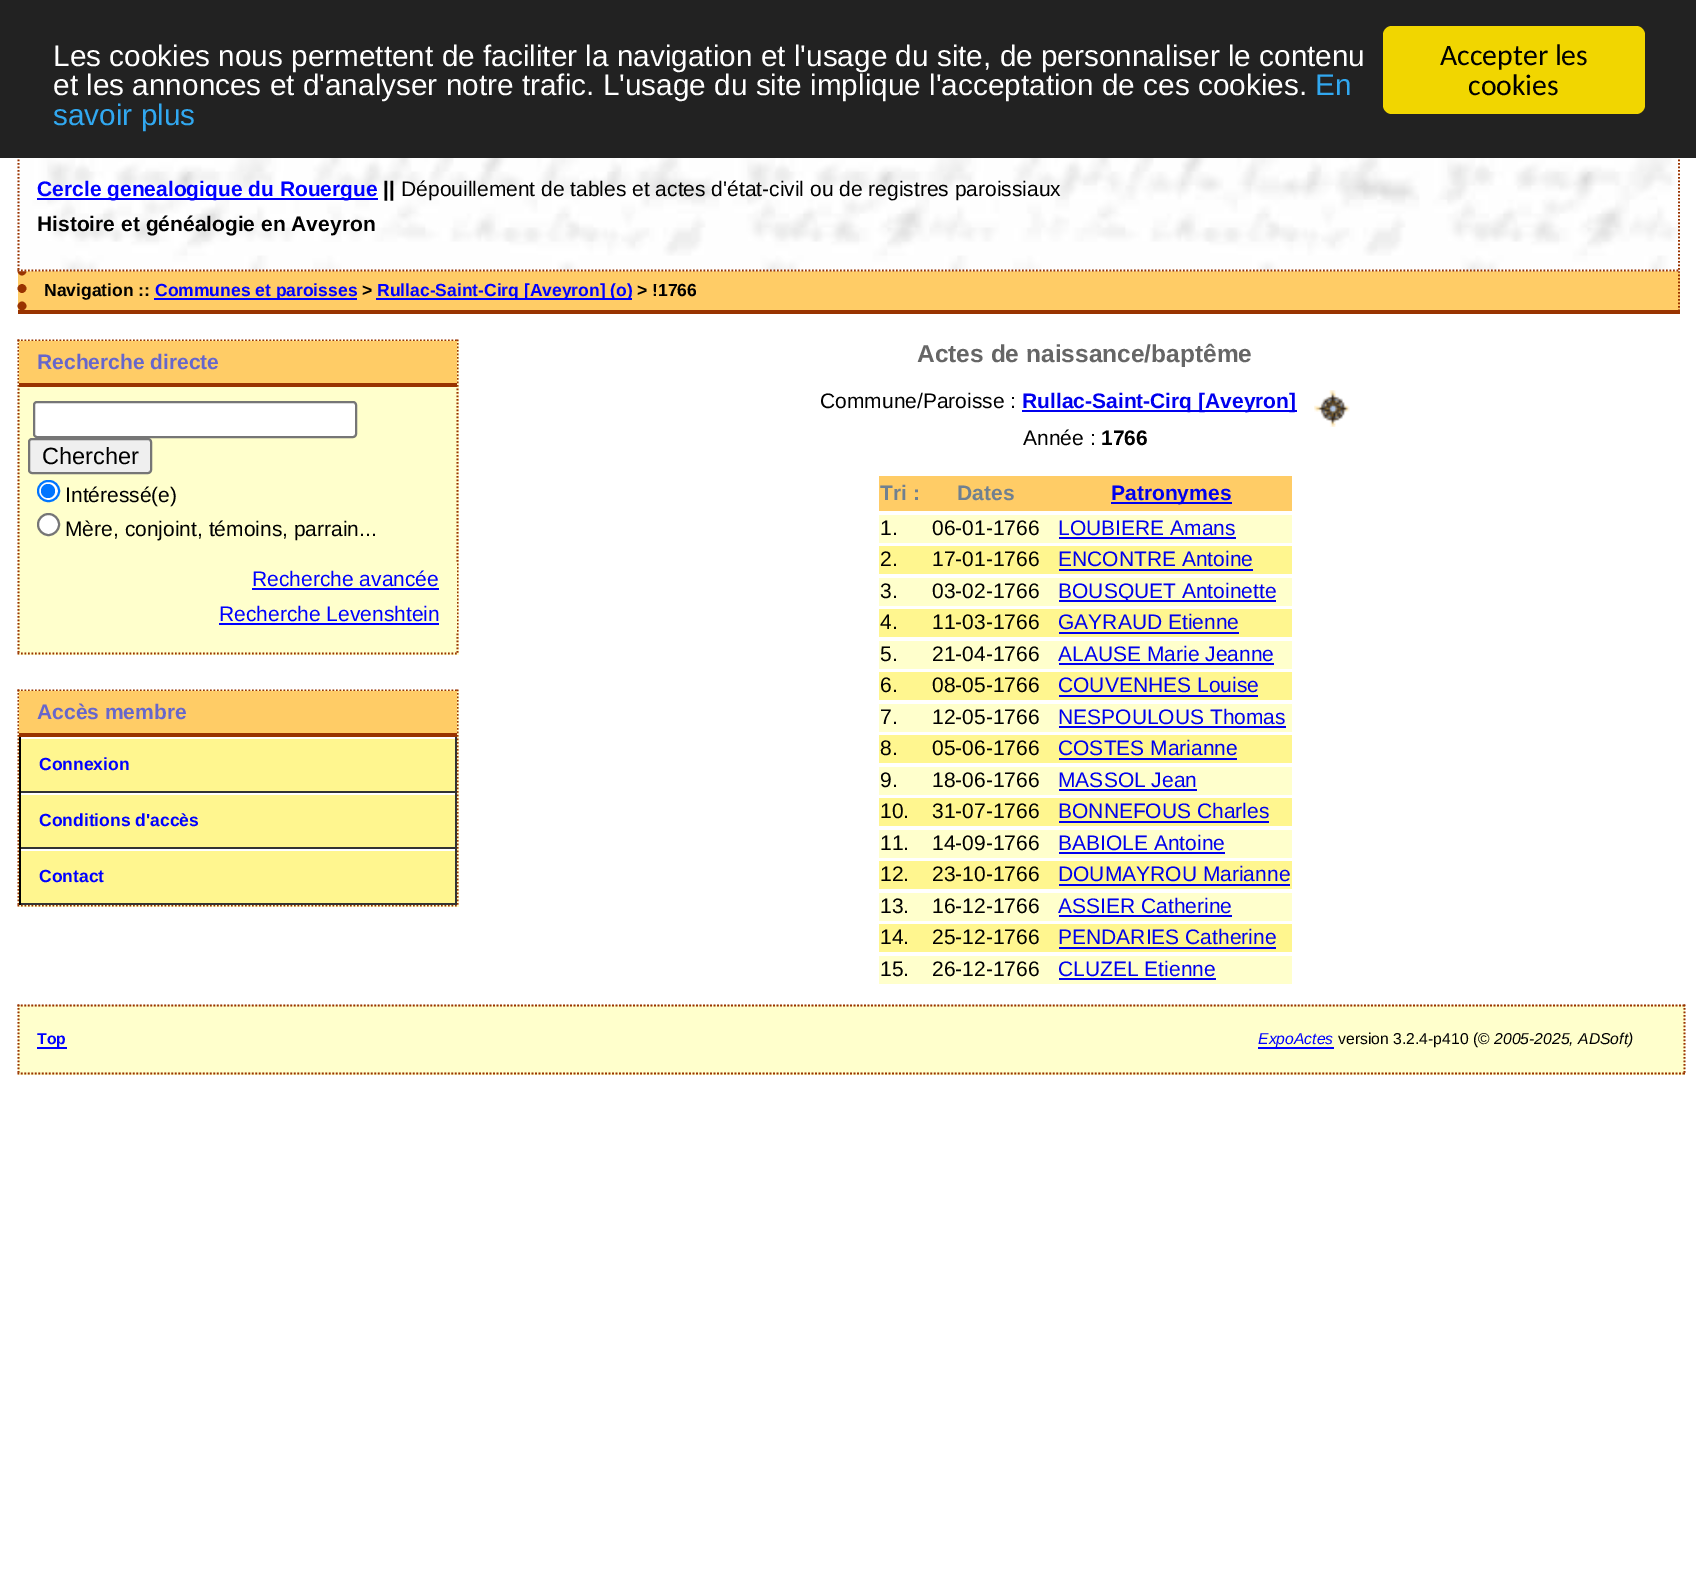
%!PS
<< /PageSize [1696 1582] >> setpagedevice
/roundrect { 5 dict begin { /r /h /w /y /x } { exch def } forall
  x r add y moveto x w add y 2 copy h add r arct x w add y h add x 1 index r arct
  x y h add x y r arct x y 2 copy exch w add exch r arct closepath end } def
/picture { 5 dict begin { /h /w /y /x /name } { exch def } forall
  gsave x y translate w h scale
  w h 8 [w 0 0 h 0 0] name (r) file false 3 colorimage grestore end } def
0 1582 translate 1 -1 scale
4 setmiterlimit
1 setgray
0 0 1696 1582 rectfill
1 0.8 0.4 setrgbcolor
18 271 1662 39 rectfill
0.6 0.2 0 setrgbcolor
1.8 setlinewidth
[1.75 1.75] 0 setdash
newpath 1679 271 moveto 1679 313 lineto stroke
18 310 1662 4 rectfill
8.8 setlinewidth
1 setlinecap
[0 17.5] 0 setdash
newpath 22 271 moveto 22 313 lineto stroke
(img1.rgb) 17 158 1663 114 picture
1.8 setlinewidth
0 setlinecap
[1.75 1.75] 0 setdash
newpath 1679 142 moveto 1679 271 lineto stroke
newpath 17.5 270.5 moveto 1680 270.5 lineto stroke
newpath 18.5 142 moveto 18.5 271 lineto stroke
0.133 setgray
0 0 1696 158 rectfill
/LiberationSans-Regular [29.75 0 0 -29.75 0 0] selectfont
1 setgray
53 66 moveto (Les cookies nous permettent de faciliter la navigation et l'usage du site, de personnaliser le contenu) show
53 95 moveto (et les annonces et d'analyser notre trafic. L'usage du site implique l'acceptation de ces cookies.) show
0.192 0.659 0.941 setrgbcolor
1315 95 moveto (En) show
53 125 moveto (savoir plus) show
0.945 0.839 0 setrgbcolor
1383 26 262 88 9 roundrect fill
/Carlito-Regular [29.75 0 0 -29.75 0 0] selectfont
0 setgray
1440 65 moveto (Accepter les) show
1468 95 moveto (cookies) show
0 0 1 setrgbcolor
37 198 341 2 rectfill
/LiberationSans-Bold [21 0 0 -21 0 0] selectfont
37 196 moveto (Cercle genealogique du Rouergue) show
0 setgray
383 196 moveto (||) show
/LiberationSans-Regular [21 0 0 -21 0 0] selectfont
401 196 moveto (Dépouillement de tables et actes d'état-civil ou de registres paroissiaux) show
/LiberationSans-Bold [21 0 0 -21 0 0] selectfont
37 231 moveto (Histoire et généalogie en Aveyron) show
/LiberationSans-Bold [17.5 0 0 -17.5 0 0] selectfont
44 296 moveto (Navigation ::) show
0 0 1 setrgbcolor
154 298 203 2 rectfill
155 296 moveto (Communes et paroisses) show
0 setgray
362 296 moveto (>) show
0 0 1 setrgbcolor
376 298 256 2 rectfill
377 296 moveto (Rullac-Saint-Cirq [Aveyron] \(o\)) show
0 setgray
637 296 moveto (> !1766) show
1 1 0.8 setrgbcolor
18 340 441 315 rectfill
0.6 0.2 0 setrgbcolor
newpath 17.5 340.5 moveto 458.5 340.5 lineto stroke
newpath 457.5 339.5 moveto 457.5 654.5 lineto stroke
newpath 17.5 653.5 moveto 458.5 653.5 lineto stroke
newpath 18.5 339.5 moveto 18.5 654.5 lineto stroke
1 0.8 0.4 setrgbcolor
19 341 438 42 rectfill
0.6 0.2 0 setrgbcolor
19 383 438 4 rectfill
/LiberationSans-Bold [21 0 0 -21 0 0] selectfont
0.4 0.4 0.8 setrgbcolor
37 369 moveto (Recherche directe) show
1 setgray
34 402 322 35 3 roundrect gsave fill grestore
0.463 setgray
2 setlinewidth
[] 0 setdash
stroke
0.937 setgray
29 439 122 34 3 roundrect gsave fill grestore
0.463 setgray
stroke
/LiberationSans-Regular [23.5 0 0 -23.5 0 0] selectfont
0 setgray
42 464 moveto (Chercher) show
1 setgray
38 481 21 20 10 roundrect gsave fill grestore
0 0.459 1 setrgbcolor
stroke
newpath 48 491 7 0 360 arc closepath fill
/LiberationSans-Regular [21 0 0 -21 0 0] selectfont
0 setgray
65 502 moveto (Intéressé\(e\)) show
1 setgray
newpath 48.5 524.5 10.5 0 360 arc closepath gsave fill grestore
0.463 setgray
stroke
0 setgray
65 536 moveto (Mère, conjoint, témoins, parrain...) show
1 1 0.8 setrgbcolor
456 563 1 69 rectfill
0 0 1 setrgbcolor
252 586 moveto (Recherche avancée) show
252 588 187 2 rectfill
219 621 moveto (Recherche Levenshtein) show
219 623 220 2 rectfill
1 1 0.8 setrgbcolor
18 690 441 217 rectfill
0.6 0.2 0 setrgbcolor
1.8 setlinewidth
[1.75 1.75] 0 setdash
newpath 17.5 690.5 moveto 458.5 690.5 lineto stroke
newpath 457.5 689.5 moveto 457.5 906.5 lineto stroke
newpath 17.5 905.5 moveto 458.5 905.5 lineto stroke
newpath 18.5 689.5 moveto 18.5 906.5 lineto stroke
1 0.8 0.4 setrgbcolor
19 691 438 42 rectfill
0.6 0.2 0 setrgbcolor
19 733 438 4 rectfill
/LiberationSans-Bold [21 0 0 -21 0 0] selectfont
0.4 0.4 0.8 setrgbcolor
37 719 moveto (Accès membre) show
1 0.965 0.561 setrgbcolor
21 739 434 52 rectfill
1 setgray
19 737 438 2 rectfill
0.2 setgray
455 737 2 56 rectfill
19 791 438 2 rectfill
0 setgray
19 737 2 56 rectfill
/LiberationSans-Bold [17.5 0 0 -17.5 0 0] selectfont
0 0 1 setrgbcolor
39 770 moveto (Connexion) show
1 0.965 0.561 setrgbcolor
21 795 434 52 rectfill
1 setgray
19 793 438 2 rectfill
0.2 setgray
455 793 2 56 rectfill
19 847 438 2 rectfill
0 setgray
19 793 2 56 rectfill
0 0 1 setrgbcolor
39 826 moveto (Conditions d'accès) show
1 0.965 0.561 setrgbcolor
21 851 434 52 rectfill
1 setgray
19 849 438 2 rectfill
0.2 setgray
455 849 2 56 rectfill
19 903 438 2 rectfill
0 setgray
19 849 2 56 rectfill
0 0 1 setrgbcolor
39 882 moveto (Contact) show
/LiberationSans-Bold [24.5 0 0 -24.5 0 0] selectfont
0.4 setgray
917 362 moveto (Actes de naissance/baptême) show
/LiberationSans-Regular [21 0 0 -21 0 0] selectfont
0 setgray
820 408 moveto (Commune/Paroisse :) show
0 0 0.933 setrgbcolor
1022 410 275 2 rectfill
/LiberationSans-Bold [21 0 0 -21 0 0] selectfont
1022 408 moveto (Rullac-Saint-Cirq [Aveyron]) show
(img2.rgb) 1314 390 36 37 picture
/LiberationSans-Regular [21 0 0 -21 0 0] selectfont
0 setgray
1023 445 moveto (Année :) show
/LiberationSans-Bold [21 0 0 -21 0 0] selectfont
1101 445 moveto (1766) show
1 0.8 0.4 setrgbcolor
879 476 413 35 rectfill
0.439 0.502 0.565 setrgbcolor
880 500 moveto (Tri :) show
957 500 moveto (Dates) show
0 0 0.933 setrgbcolor
1111 502 121 2 rectfill
1111 500 moveto (Patronymes) show
1 1 0.8 setrgbcolor
879 515 413 28 rectfill
/LiberationSans-Regular [21 0 0 -21 0 0] selectfont
0 setgray
880 535 moveto (1.) show
932 535 moveto (06-01-1766) show
0 0 0.933 setrgbcolor
1058 535 moveto (LOUBIERE Amans) show
1059 537 177 2 rectfill
1 0.965 0.561 setrgbcolor
879 546 413 28 rectfill
0 setgray
880 566 moveto (2.) show
932 566 moveto (17-01-1766) show
0 0 0.933 setrgbcolor
1058 566 moveto (ENCONTRE Antoine) show
1059 569 194 2 rectfill
1 1 0.8 setrgbcolor
879 578 413 28 rectfill
0 setgray
880 598 moveto (3.) show
932 598 moveto (03-02-1766) show
0 0 0.933 setrgbcolor
1059 600 217 2 rectfill
1058 598 moveto (BOUSQUET Antoinette) show
1 0.965 0.561 setrgbcolor
879 609 413 28 rectfill
0 setgray
880 629 moveto (4.) show
932 629 moveto (11-03-1766) show
0 0 0.933 setrgbcolor
1058 629 moveto (GAYRAUD Etienne) show
1059 632 180 2 rectfill
1 1 0.8 setrgbcolor
879 641 413 28 rectfill
0 setgray
880 661 moveto (5.) show
932 661 moveto (21-04-1766) show
0 0 0.933 setrgbcolor
1058 661 moveto (ALAUSE Marie Jeanne) show
1059 663 215 2 rectfill
1 0.965 0.561 setrgbcolor
879 672 413 28 rectfill
0 setgray
880 692 moveto (6.) show
932 692 moveto (08-05-1766) show
0 0 0.933 setrgbcolor
1058 692 moveto (COUVENHES Louise) show
1059 695 199 2 rectfill
1 1 0.8 setrgbcolor
879 704 413 28 rectfill
0 setgray
880 724 moveto (7.) show
932 724 moveto (12-05-1766) show
0 0 0.933 setrgbcolor
1058 724 moveto (NESPOULOUS Thomas) show
1059 726 227 2 rectfill
1 0.965 0.561 setrgbcolor
879 735 413 28 rectfill
0 setgray
880 755 moveto (8.) show
932 755 moveto (05-06-1766) show
0 0 0.933 setrgbcolor
1058 755 moveto (COSTES Marianne) show
1059 758 178 2 rectfill
1 1 0.8 setrgbcolor
879 767 413 28 rectfill
0 setgray
880 787 moveto (9.) show
932 787 moveto (18-06-1766) show
0 0 0.933 setrgbcolor
1058 787 moveto (MASSOL Jean) show
1059 789 138 2 rectfill
1 0.965 0.561 setrgbcolor
879 798 413 28 rectfill
0 setgray
880 818 moveto (10.) show
932 818 moveto (31-07-1766) show
0 0 0.933 setrgbcolor
1058 818 moveto (BONNEFOUS Charles) show
1059 821 210 2 rectfill
1 1 0.8 setrgbcolor
879 830 413 28 rectfill
0 setgray
880 850 moveto (11.) show
932 850 moveto (14-09-1766) show
0 0 0.933 setrgbcolor
1058 850 moveto (BABIOLE Antoine) show
1059 852 166 2 rectfill
1 0.965 0.561 setrgbcolor
879 861 413 28 rectfill
0 setgray
880 881 moveto (12.) show
932 881 moveto (23-10-1766) show
0 0 0.933 setrgbcolor
1058 881 moveto (DOUMAYROU Marianne) show
1059 884 231 2 rectfill
1 1 0.8 setrgbcolor
879 893 413 28 rectfill
0 setgray
880 913 moveto (13.) show
932 913 moveto (16-12-1766) show
0 0 0.933 setrgbcolor
1058 913 moveto (ASSIER Catherine) show
1059 915 173 2 rectfill
1 0.965 0.561 setrgbcolor
879 924 413 28 rectfill
0 setgray
880 944 moveto (14.) show
932 944 moveto (25-12-1766) show
0 0 0.933 setrgbcolor
1058 944 moveto (PENDARIES Catherine) show
1059 947 217 2 rectfill
1 1 0.8 setrgbcolor
879 956 413 28 rectfill
0 setgray
880 976 moveto (15.) show
932 976 moveto (26-12-1766) show
0 0 0.933 setrgbcolor
1058 976 moveto (CLUZEL Etienne) show
1059 978 157 2 rectfill
1 1 0.8 setrgbcolor
18 1005 1667 70 rectfill
0.6 0.2 0 setrgbcolor
newpath 17.5 1005.5 moveto 1685 1005.5 lineto stroke
newpath 1684.5 1004.5 moveto 1684.5 1074.5 lineto stroke
newpath 17.5 1073.5 moveto 1685 1073.5 lineto stroke
newpath 18.5 1004.5 moveto 18.5 1074.5 lineto stroke
0 0 1 setrgbcolor
37 1047 30 2 rectfill
/LiberationSans-Bold [15.75 0 0 -15.75 0 0] selectfont
37 1044 moveto (Top) show
1258 1047 76 2 rectfill
/LiberationSans-Italic [15.75 0 0 -15.75 0 0] selectfont
1258 1044 moveto (ExpoActes) show
/LiberationSans-Regular [15.75 0 0 -15.75 0 0] selectfont
0 setgray
1338 1044 moveto (version 3.2.4-p410 \(©) show
/LiberationSans-Italic [15.75 0 0 -15.75 0 0] selectfont
1494 1044 moveto (2005-2025, ADSoft\)) show
showpage
